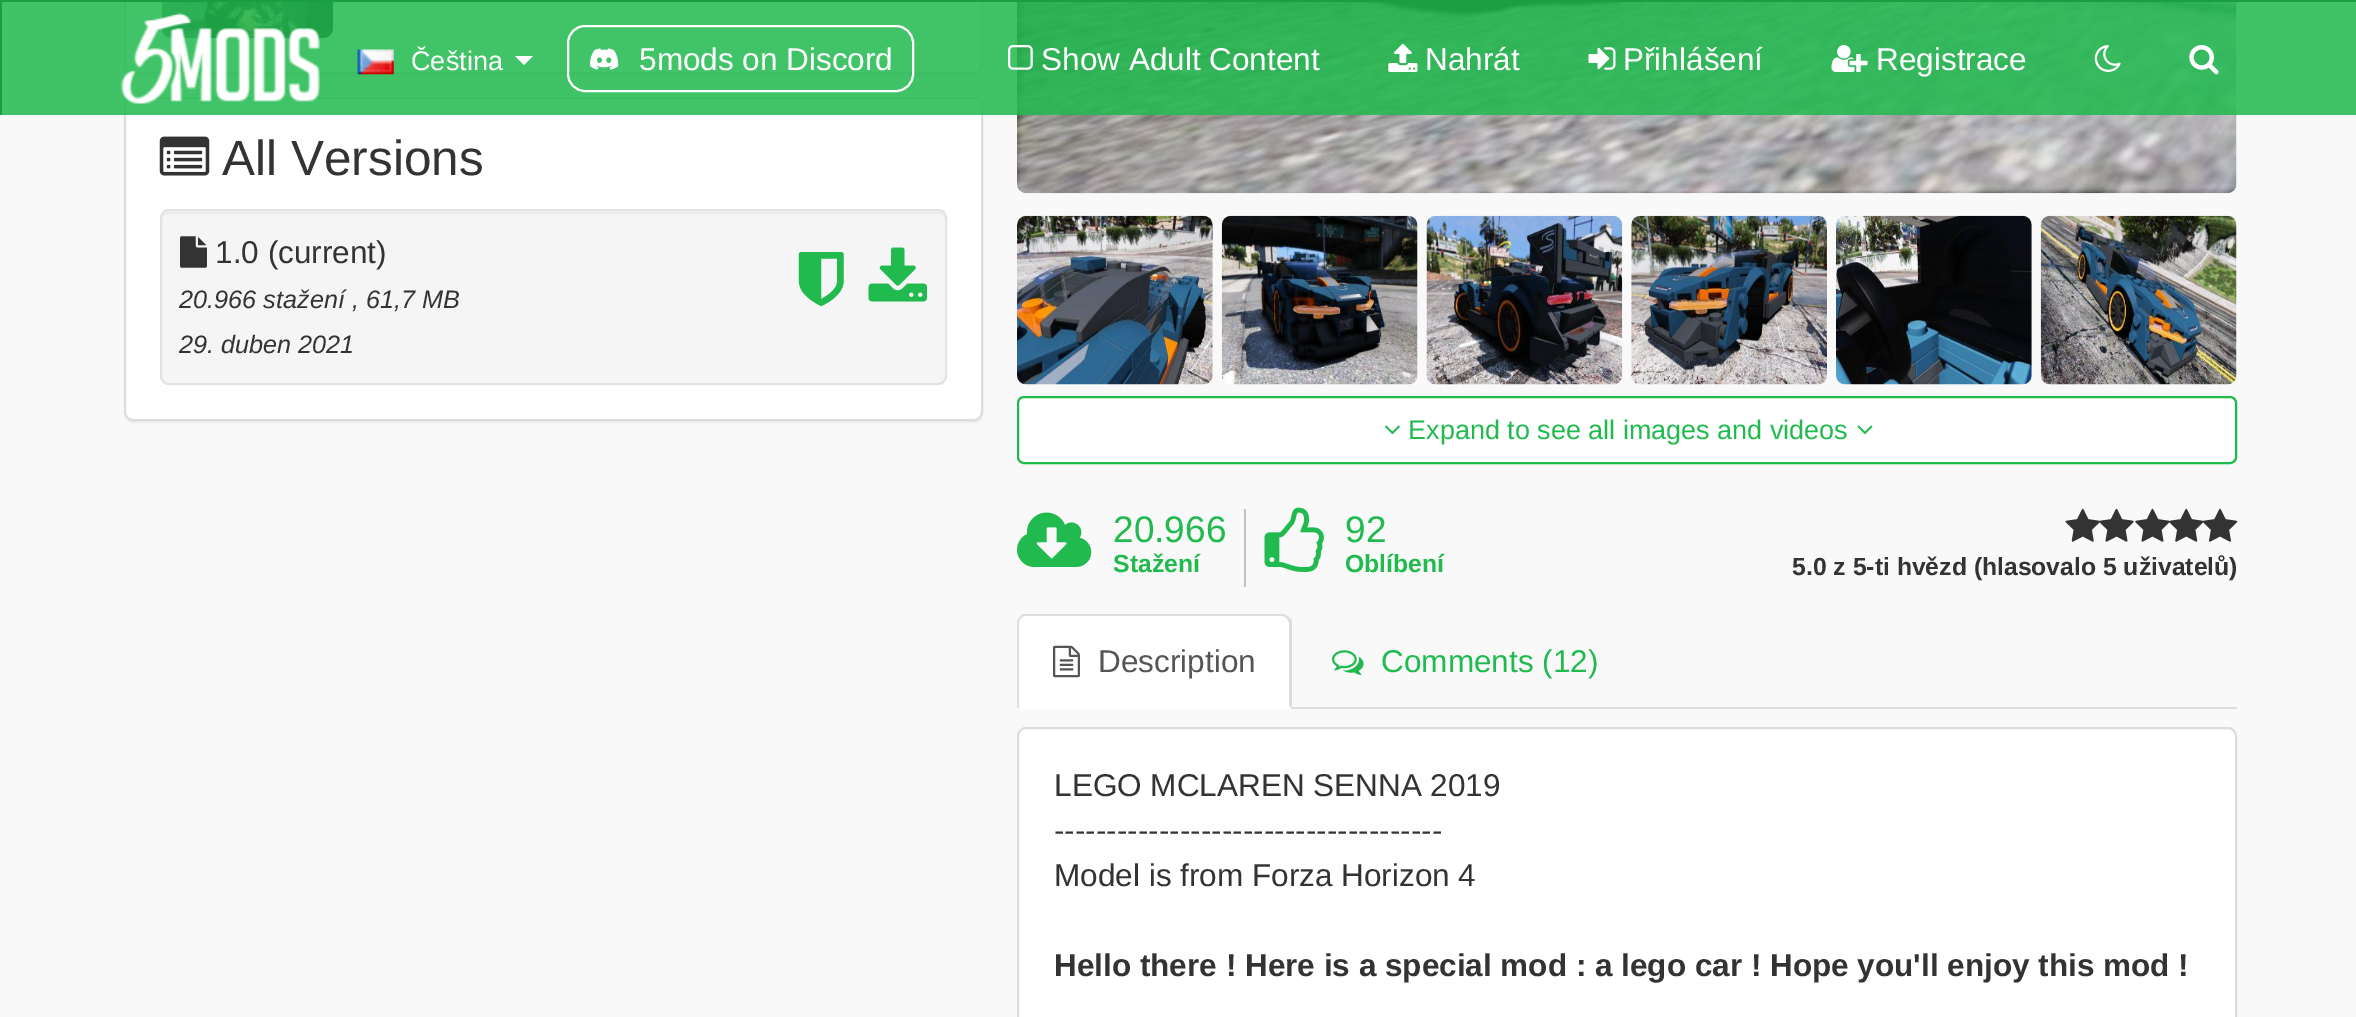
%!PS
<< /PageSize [2356 1017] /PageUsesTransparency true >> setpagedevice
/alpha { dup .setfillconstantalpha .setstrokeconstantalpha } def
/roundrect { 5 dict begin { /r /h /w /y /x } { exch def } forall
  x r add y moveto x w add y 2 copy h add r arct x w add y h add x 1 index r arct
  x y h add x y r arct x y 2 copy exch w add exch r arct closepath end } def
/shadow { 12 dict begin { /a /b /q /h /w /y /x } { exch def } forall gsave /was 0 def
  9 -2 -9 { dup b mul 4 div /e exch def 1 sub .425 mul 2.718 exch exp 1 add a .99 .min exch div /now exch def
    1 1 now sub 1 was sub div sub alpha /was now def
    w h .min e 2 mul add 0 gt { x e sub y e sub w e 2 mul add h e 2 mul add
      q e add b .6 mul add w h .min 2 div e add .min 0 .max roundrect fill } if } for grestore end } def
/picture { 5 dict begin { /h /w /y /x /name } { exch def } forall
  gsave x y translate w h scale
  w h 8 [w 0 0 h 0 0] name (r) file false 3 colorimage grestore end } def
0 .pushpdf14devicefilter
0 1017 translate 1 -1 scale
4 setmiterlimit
0.976 setgray
0 0 2356 1017 rectfill
0 setgray
124 -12 859 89 9 1 0.05 shadow
1 setgray
125 -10 857 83 8 roundrect gsave fill grestore
0.867 setgray
2 setlinewidth
stroke
(img10.rgb) 162 2 171 36 picture
0 setgray
124 99 859 324 9 1 0.05 shadow
1 setgray
125 98 857 322 8 roundrect gsave fill grestore
0.867 setgray
stroke
(img15.rgb) 1017 2 1220 192 picture
0.85 alpha
0.125 0.729 0.306 setrgbcolor
2 2 2354 113 rectfill
1 alpha
0.106 0.62 0.259 setrgbcolor
0 0 2356 2 rectfill
0 0 2 115 rectfill
(img1.rgb) 120 13 200 91 picture
(img2.rgb) 357 49 37 26 picture
/LiberationSans-Regular [27 0 0 -27 0 0] selectfont
1 setgray
411 70 moveto (Čeština) show
newpath 515 56 moveto 533 56 lineto 524 65 lineto closepath fill
568 26 345 65 17 roundrect stroke
(img3.rgb) 590 48 29 22 picture
/LiberationSans-Regular [31.5 0 0 -31.5 0 0] selectfont
639 70 moveto (5mods on Discord) show
(img4.rgb) 1008 45 25 25 picture
1041 70 moveto (Show Adult Content) show
(img5.rgb) 1388 43 30 29 picture
1425 70 moveto (Nahrát) show
(img6.rgb) 1588 47 28 23 picture
1623 70 moveto (Přihlášení) show
(img7.rgb) 1831 45 37 27 picture
1876 70 moveto (Registrace) show
(img8.rgb) 2094 45 27 27 picture
(img9.rgb) 2189 45 30 30 picture
(img11.rgb) 159 136 51 40 picture
/LiberationSans-Regular [49.5 0 0 -49.5 0 0] selectfont
0.2 setgray
222 175 moveto (All Versions) show
0.961 setgray
160 209 787 176 9 roundrect fill
0.914 setgray
newpath 169 214 moveto 938 214 lineto 942 214 945 217 945 220 curveto 945 216 943 212 938 212 curveto 169 212 lineto 164 212 162 216 162 220 curveto 162 217 165 214 169 214 curveto closepath fill
0.89 setgray
161 210 785 174 8 roundrect stroke
(img12.rgb) 180 236 27 32 picture
/LiberationSans-Regular [31.5 0 0 -31.5 0 0] selectfont
0.2 setgray
215 263 moveto (1.0 \(current\)) show
/LiberationSans-Italic [25.25 0 0 -25.25 0 0] selectfont
179 308 moveto (20.966 stažení , 61,7 MB) show
179 353 moveto (29. duben 2021) show
(img13.rgb) 798 252 46 54 picture
(img14.rgb) 868 247 59 55 picture
(img16.rgb) 1017 215 196 170 picture
(img17.rgb) 1221 215 197 170 picture
(img18.rgb) 1426 215 197 170 picture
(img19.rgb) 1631 215 196 170 picture
(img20.rgb) 1836 215 196 170 picture
(img21.rgb) 2040 215 197 170 picture
1 setgray
1018 397 1218 66 6 roundrect gsave fill grestore
0.125 0.729 0.306 setrgbcolor
stroke
(img22.rgb) 1385 425 15 10 picture
/LiberationSans-Regular [27 0 0 -27 0 0] selectfont
1408 439 moveto (Expand to see all images and videos) show
(img23.rgb) 1857 425 16 10 picture
(img24.rgb) 1017 512 75 55 picture
0.761 setgray
1244 509 2 78 rectfill
/LiberationSans-Regular [37 0 0 -37 0 0] selectfont
0.125 0.729 0.306 setrgbcolor
1113 542 moveto (20.966) show
/LiberationSans-Bold [24.75 0 0 -24.75 0 0] selectfont
1113 572 moveto (Stažení) show
(img25.rgb) 1264 507 60 65 picture
/LiberationSans-Regular [37 0 0 -37 0 0] selectfont
1345 542 moveto (92) show
/LiberationSans-Bold [24.75 0 0 -24.75 0 0] selectfont
1345 572 moveto (Oblíbení) show
(img26.rgb) 2065 508 35 34 picture
(img27.rgb) 2099 508 35 34 picture
(img28.rgb) 2135 508 35 34 picture
(img29.rgb) 2169 508 35 34 picture
(img30.rgb) 2203 508 35 34 picture
0.2 setgray
1792 575 moveto (5.0 z 5-ti hvězd \(hlasovalo 5 uživatelů\)) show
0.867 setgray
1292 707 945 2 rectfill
1 setgray
newpath 1026 614 moveto 1283 614 lineto 1288 614 1292 618 1292 623 curveto 1292 709 lineto 1017 709 lineto 1017 623 lineto 1017 618 1021 614 1026 614 curveto closepath fill
0.867 setgray
newpath 1026 616 moveto 1024 616 1022 617 1021 618 curveto 1020 617 lineto 1020 616 1022 614 1024 614 curveto 1284 614 lineto 1289 617 lineto 1287 619 lineto 1286 617 1284 616 1282 616 curveto closepath fill
newpath 1289 617 moveto 1292 620 lineto 1292 709 lineto 1289 706 lineto 1289 623 lineto 1289 622 1288 620 1287 619 curveto closepath fill
newpath 1017 709 moveto 1020 706 lineto 1019 706 lineto 1019 623 lineto 1019 621 1020 620 1021 618 curveto 1020 617 lineto 1018 618 1017 621 1017 623 curveto closepath fill
(img31.rgb) 1053 645 27 33 picture
/LiberationSans-Regular [31.5 0 0 -31.5 0 0] selectfont
0.333 setgray
1098 672 moveto (Description) show
(img32.rgb) 1332 650 32 25 picture
0.125 0.729 0.306 setrgbcolor
1381 672 moveto (Comments \(12\)) show
1 setgray
1018 728 1218 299 8 roundrect gsave fill grestore
0.867 setgray
stroke
0.2 setgray
1054 796 moveto (LEGO MCLAREN SENNA 2019) show
1054 841 moveto (-------------------------------------) show
1054 886 moveto (Model is from Forza Horizon 4) show
/LiberationSans-Bold [31.5 0 0 -31.5 0 0] selectfont
1054 976 moveto (Hello there ! Here is a special mod : a lego car ! Hope you'll enjoy this mod !) show
.poppdf14devicefilter showpage
